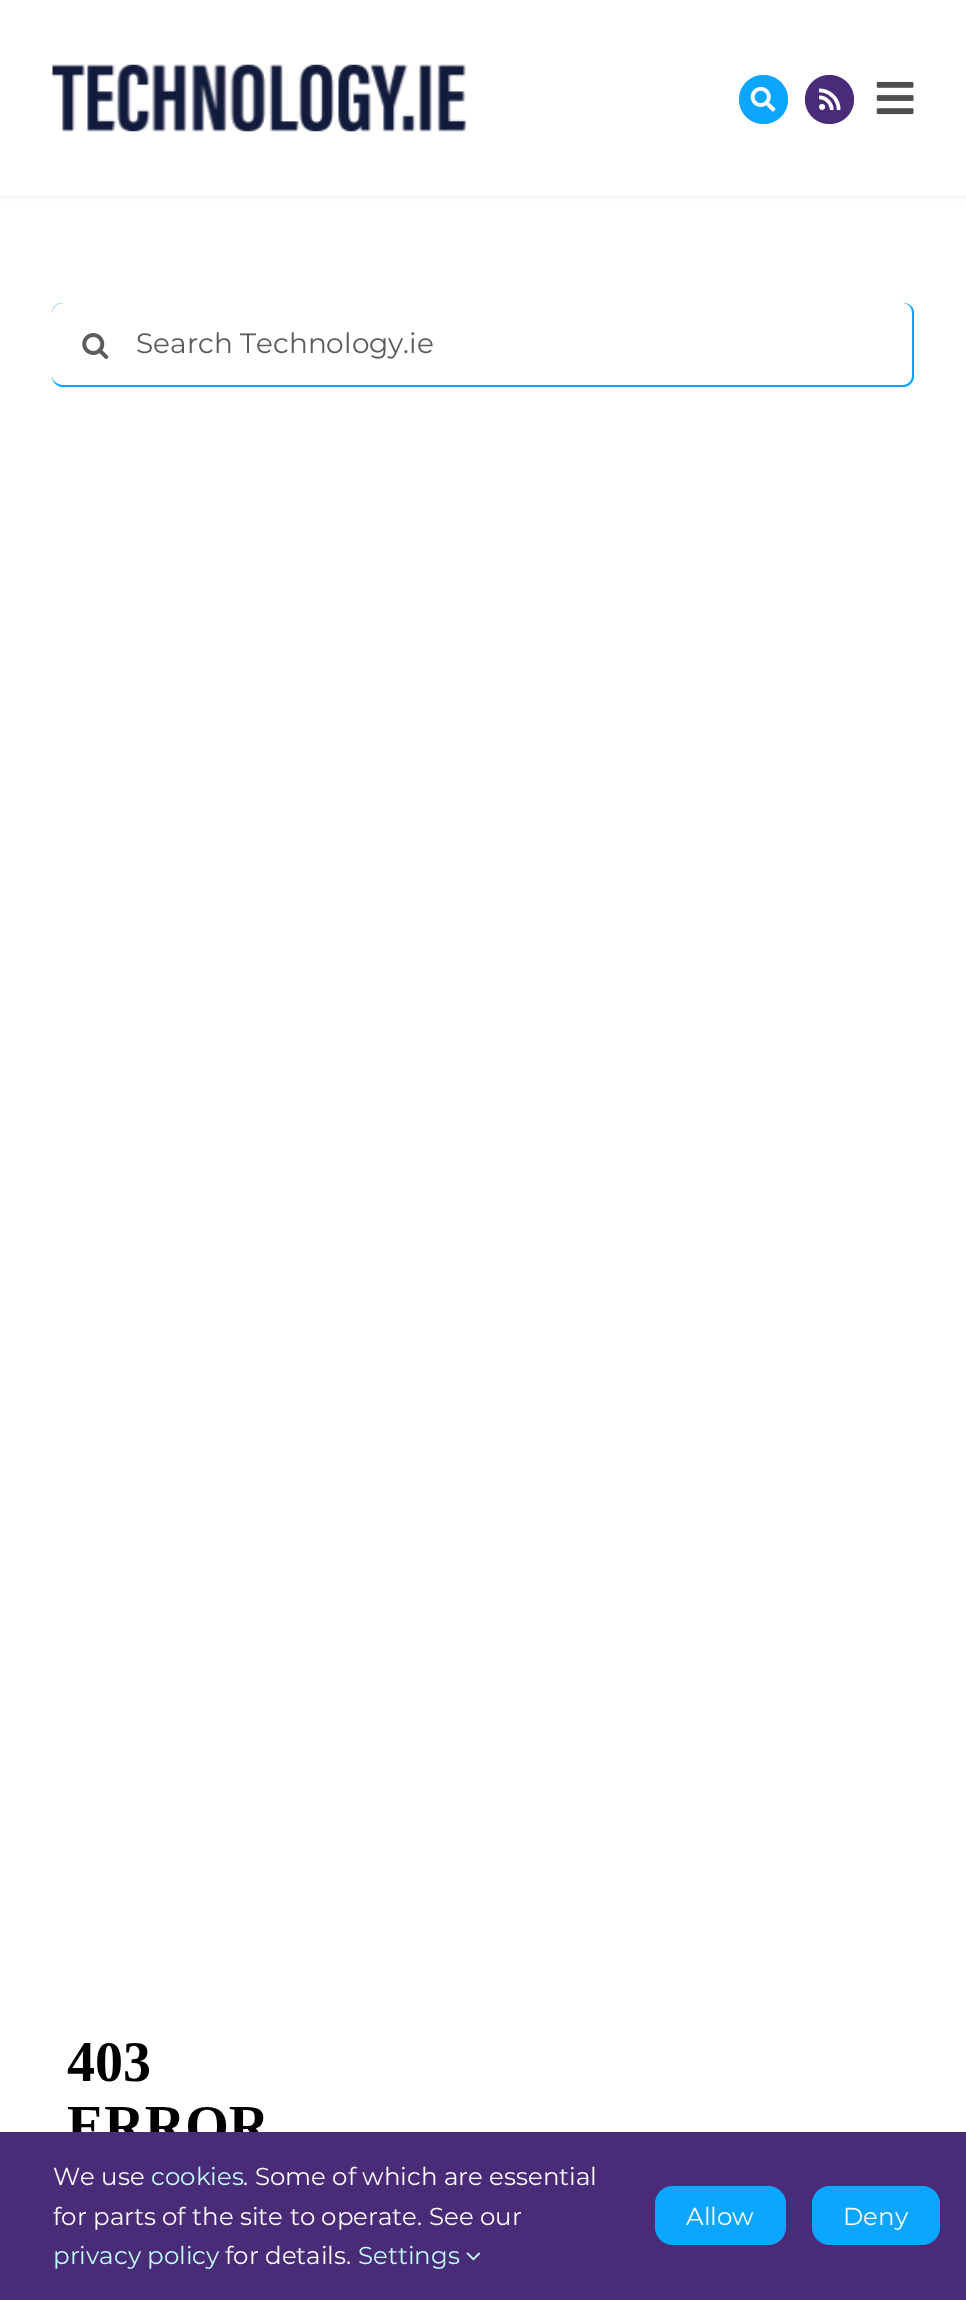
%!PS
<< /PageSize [966 2300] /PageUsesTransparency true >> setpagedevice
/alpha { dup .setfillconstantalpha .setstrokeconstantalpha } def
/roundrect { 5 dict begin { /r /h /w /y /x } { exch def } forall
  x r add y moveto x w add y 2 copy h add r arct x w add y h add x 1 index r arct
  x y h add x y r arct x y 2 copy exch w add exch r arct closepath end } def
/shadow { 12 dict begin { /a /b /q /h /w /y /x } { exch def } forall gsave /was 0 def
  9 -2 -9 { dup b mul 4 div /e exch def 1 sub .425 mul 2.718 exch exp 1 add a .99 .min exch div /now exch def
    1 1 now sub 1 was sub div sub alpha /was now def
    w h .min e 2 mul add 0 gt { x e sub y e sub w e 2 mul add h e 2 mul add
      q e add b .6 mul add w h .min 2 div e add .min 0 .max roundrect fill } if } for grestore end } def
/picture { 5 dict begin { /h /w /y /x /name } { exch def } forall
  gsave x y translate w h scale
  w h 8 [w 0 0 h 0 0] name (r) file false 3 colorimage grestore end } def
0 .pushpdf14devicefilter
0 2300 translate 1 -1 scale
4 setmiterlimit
1 setgray
0 0 966 2300 rectfill
0.071 0.106 0.235 setrgbcolor
0 0 966 196 0 2.5 0.09 shadow
1 setgray
0 0 966 196 rectfill
(img1.rgb) 52 64 414 68 picture
0.043 0.651 1 setrgbcolor
newpath 763.5 99.5 24.5 0 360 arc closepath fill
(img2.rgb) 750 86 26 26 picture
0.29 0.169 0.471 setrgbcolor
newpath 829.5 99.5 24.5 0 360 arc closepath fill
(img3.rgb) 819 88 22 23 picture
(img4.rgb) 876 81 38 34 picture
0.043 0.651 1 setrgbcolor
newpath 63 303 moveto 903 303 lineto 909 303 914 307 914 313 curveto 914 376 lineto 914 382 909 387 903 387 curveto 63 387 lineto 57 387 52 382 52 376 curveto 52 313 lineto 52 307 57 303 63 303 curveto closepath 63 303 moveto 903 303 lineto 908 303 912 307 912 313 curveto 912 376 lineto 912 381 908 385 903 385 curveto 63 385 lineto 57 385 52 381 52 376 curveto 52 313 lineto 52 307 57 303 63 303 curveto closepath eofill
(img5.rgb) 82 333 27 26 picture
/Montserrat-Regular [28 0 0 -28 0 0] selectfont
0.353 0.361 0.369 setrgbcolor
136 353 moveto (Search Technology.ie) show
(img6.rgb) 67 2043 197 89 picture
0.29 0.169 0.471 setrgbcolor
0 2132 966 168 rectfill
/Montserrat-Regular [24.5 0 0 -24.5 0 0] selectfont
1 setgray
53 2185 moveto (We use) show
0.761 1 1 setrgbcolor
151 2185 moveto (cookies) show
1 setgray
243 2185 moveto (. Some of which are essential) show
53 2225 moveto (for parts of the site to operate. See our) show
0.761 1 1 setrgbcolor
53 2264 moveto (privacy policy) show
1 setgray
225 2264 moveto (for details.) show
0.761 1 1 setrgbcolor
358 2264 moveto (Settings) show
(img7.rgb) 466 2252 15 9 picture
0.043 0.651 1 setrgbcolor
655 2186 131 59 18 roundrect fill
1 setgray
686 2225 moveto (Allow) show
0.043 0.651 1 setrgbcolor
812 2186 128 59 18 roundrect fill
1 setgray
843 2225 moveto (Deny) show
.poppdf14devicefilter showpage
